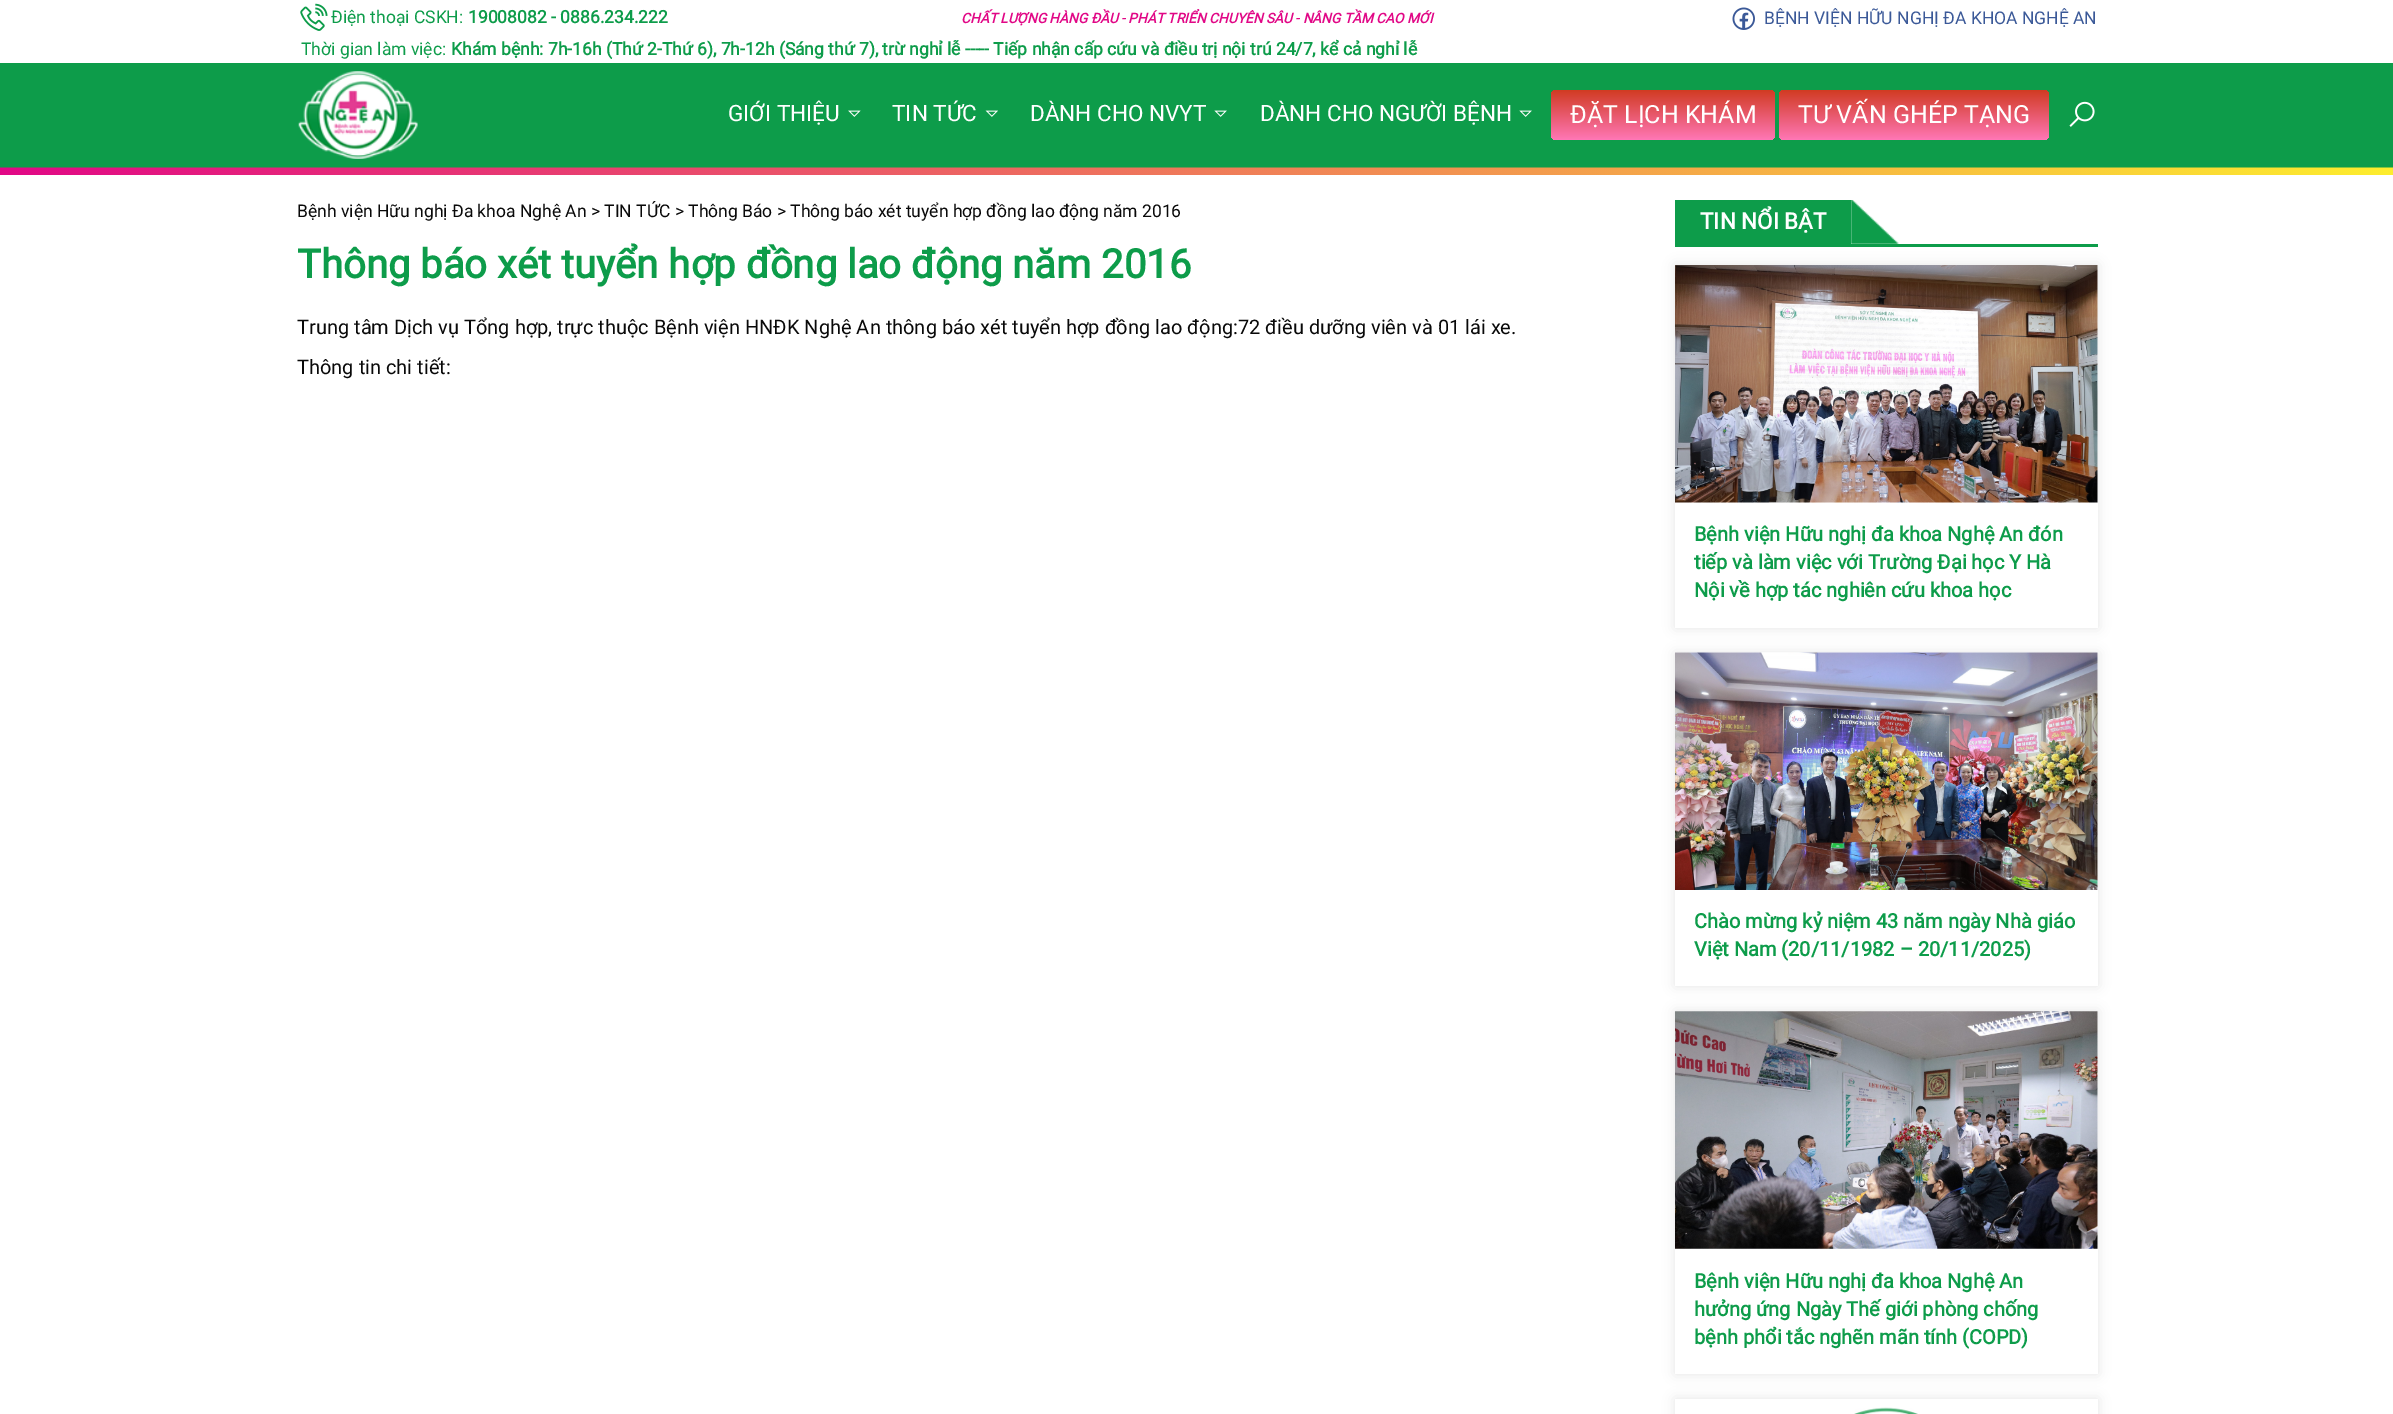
%!PS
<< /PageSize [2393 1414] /PageUsesTransparency true >> setpagedevice
/alpha { dup .setfillconstantalpha .setstrokeconstantalpha } def
/roundrect { 5 dict begin { /r /h /w /y /x } { exch def } forall
  x r add y moveto x w add y 2 copy h add r arct x w add y h add x 1 index r arct
  x y h add x y r arct x y 2 copy exch w add exch r arct closepath end } def
/shadow { 12 dict begin { /a /b /q /h /w /y /x } { exch def } forall gsave /was 0 def
  9 -2 -9 { dup b mul 4 div /e exch def 1 sub .425 mul 2.718 exch exp 1 add a .99 .min exch div /now exch def
    1 1 now sub 1 was sub div sub alpha /was now def
    w h .min e 2 mul add 0 gt { x e sub y e sub w e 2 mul add h e 2 mul add
      q e add b .6 mul add w h .min 2 div e add .min 0 .max roundrect fill } if } for grestore end } def
/picture { 5 dict begin { /h /w /y /x /name } { exch def } forall
  gsave x y translate w h scale
  w h 8 [w 0 0 h 0 0] name (r) file false 3 colorimage grestore end } def
0 .pushpdf14devicefilter
0 1414 translate 1 -1 scale
4 setmiterlimit
1 setgray
0 0 2393 1414 rectfill
(img1.rgb) 300 3 28 28 picture
/Roboto-Regular [17.5 0 0 -17.5 0 0] selectfont
0.051 0.612 0.29 setrgbcolor
331 23 moveto (Điện thoại CSKH:) show
/Roboto-Bold [17.5 0 0 -17.5 0 0] selectfont
468 23 moveto (19008082 - 0886.234.222) show
/Roboto-BoldItalic [13.75 0 0 -13.75 0 0] selectfont
0.882 0.027 0.525 setrgbcolor
961 23 moveto (CHẤT LƯỢNG HÀNG ĐẦU - PHÁT TRIỂN CHUYÊN SÂU - NÂNG TẦM CAO MỚI) show
(img2.rgb) 1732 7 23 23 picture
/Roboto-Regular [17.5 0 0 -17.5 0 0] selectfont
0.231 0.349 0.596 setrgbcolor
1764 24 moveto (BỆNH VIỆN HỮU NGHỊ ĐA KHOA NGHỆ AN) show
0.051 0.612 0.29 setrgbcolor
301 55 moveto (Thời gian làm việc:) show
/Roboto-Bold [17.5 0 0 -17.5 0 0] selectfont
451 55 moveto (Khám bệnh: 7h-16h \(Thứ 2-Thứ 6\), 7h-12h \(Sáng thứ 7\), trừ nghỉ lễ ----- Tiếp nhận cấp cứu và điều trị nội trú 24/7, kể cả nghỉ lễ) show
0 63 2393 105 rectfill
(img3.rgb) 0 167 2393 8 picture
(img4.rgb) 298 71 120 88 picture
/Roboto-Regular [22.5 0 0 -22.5 0 0] selectfont
1 setgray
728 121 moveto (GIỚI THIỆU) show
(img5.rgb) 848 110 13 7 picture
892 121 moveto (TIN TỨC) show
(img6.rgb) 985 110 13 7 picture
1030 121 moveto (DÀNH CHO NVYT) show
(img7.rgb) 1214 110 13 7 picture
1260 121 moveto (DÀNH CHO NGƯỜI BỆNH) show
(img7.rgb) 1519 110 13 7 picture
gsave 1551 90 224 50 5 roundrect clip newpath
<< /ShadingType 2 /ColorSpace /DeviceRGB /Coords [1663 90 1663 140] /Extend [true true] /Function << /FunctionType 2 /Domain [0 1] /C0 [0.82 0.231 0.133] /C1 [1 0.467 0.714] /N 1 >> >> shfill grestore
/Roboto-Regular [25 0 0 -25 0 0] selectfont
1570 123 moveto (ĐẶT LỊCH KHÁM) show
gsave 1779 90 270 50 5 roundrect clip newpath
<< /ShadingType 2 /ColorSpace /DeviceRGB /Coords [1914 90 1914 140] /Extend [true true] /Function << /FunctionType 2 /Domain [0 1] /C0 [0.82 0.231 0.133] /C1 [1 0.467 0.714] /N 1 >> >> shfill grestore
1798 123 moveto (TƯ VẤN GHÉP TẠNG) show
(img8.rgb) 2069 101 26 26 picture
/Roboto-Regular [17.5 0 0 -17.5 0 0] selectfont
0.035 setgray
297 217 moveto (Bệnh viện Hữu nghị Đa khoa Nghệ An > TIN TỨC > Thông Báo > Thông báo xét tuyển hợp đồng lao động năm 2016) show
/Roboto-Bold [40 0 0 -40 0 0] selectfont
0.051 0.612 0.29 setrgbcolor
297 278 moveto (Thông báo xét tuyển hợp đồng lao động năm 2016) show
/Roboto-Regular [20 0 0 -20 0 0] selectfont
0.035 setgray
297 334 moveto (Trung tâm Dịch vụ Tổng hợp, trực thuộc Bệnh viện HNĐK Nghệ An thông báo xét tuyển hợp đồng lao động:72 điều dưỡng viên và 01 lái xe.) show
297 374 moveto (Thông tin chi tiết:) show
0.051 0.612 0.29 setrgbcolor
1675 244 423 3 rectfill
1675 200 176 44 rectfill
/Roboto-Bold [22.5 0 0 -22.5 0 0] selectfont
1 setgray
1700 229 moveto (TIN NỔI BẬT) show
(img9.rgb) 1851 200 48 44 picture
gsave
newpath 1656 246 moveto 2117 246 lineto 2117 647 lineto 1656 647 lineto closepath 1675 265 moveto 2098 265 lineto 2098 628 lineto 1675 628 lineto closepath eoclip newpath
0 setgray
1675 265 423 363 0 6 0.1 shadow
grestore
(img10.rgb) 1675 265 423 238 picture
/Roboto-Bold [20 0 0 -20 0 0] selectfont
0.051 0.612 0.29 setrgbcolor
1694 541 moveto (Bệnh viện Hữu nghị đa khoa Nghệ An đón) show
1694 569 moveto (tiếp và làm việc với Trường Đại học Y Hà) show
1694 597 moveto (Nội về hợp tác nghiên cứu khoa học) show
gsave
newpath 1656 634 moveto 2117 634 lineto 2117 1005 lineto 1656 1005 lineto closepath 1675 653 moveto 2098 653 lineto 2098 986 lineto 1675 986 lineto closepath eoclip newpath
0 setgray
1675 653 423 333 0 6 0.1 shadow
grestore
(img11.rgb) 1675 652 423 238 picture
1694 928 moveto (Chào mừng kỷ niệm 43 năm ngày Nhà giáo) show
1694 956 moveto (Việt Nam \(20/11/1982 – 20/11/2025\)) show
gsave
newpath 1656 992 moveto 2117 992 lineto 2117 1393 lineto 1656 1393 lineto closepath 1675 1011 moveto 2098 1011 lineto 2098 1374 lineto 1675 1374 lineto closepath eoclip newpath
0 setgray
1675 1011 423 363 0 6 0.1 shadow
grestore
(img12.rgb) 1675 1011 423 238 picture
1694 1288 moveto (Bệnh viện Hữu nghị đa khoa Nghệ An) show
1694 1316 moveto (hưởng ứng Ngày Thế giới phòng chống) show
1694 1344 moveto (bệnh phổi tắc nghẽn mãn tính \(COPD\)) show
gsave
newpath 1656 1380 moveto 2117 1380 lineto 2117 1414 lineto 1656 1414 lineto closepath 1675 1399 moveto 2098 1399 lineto 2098 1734 lineto 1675 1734 lineto closepath eoclip newpath
0 setgray
1675 1399 423 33 0 6 0.1 shadow
grestore
(img13.rgb) 1854 1407 64 7 picture
.poppdf14devicefilter showpage
